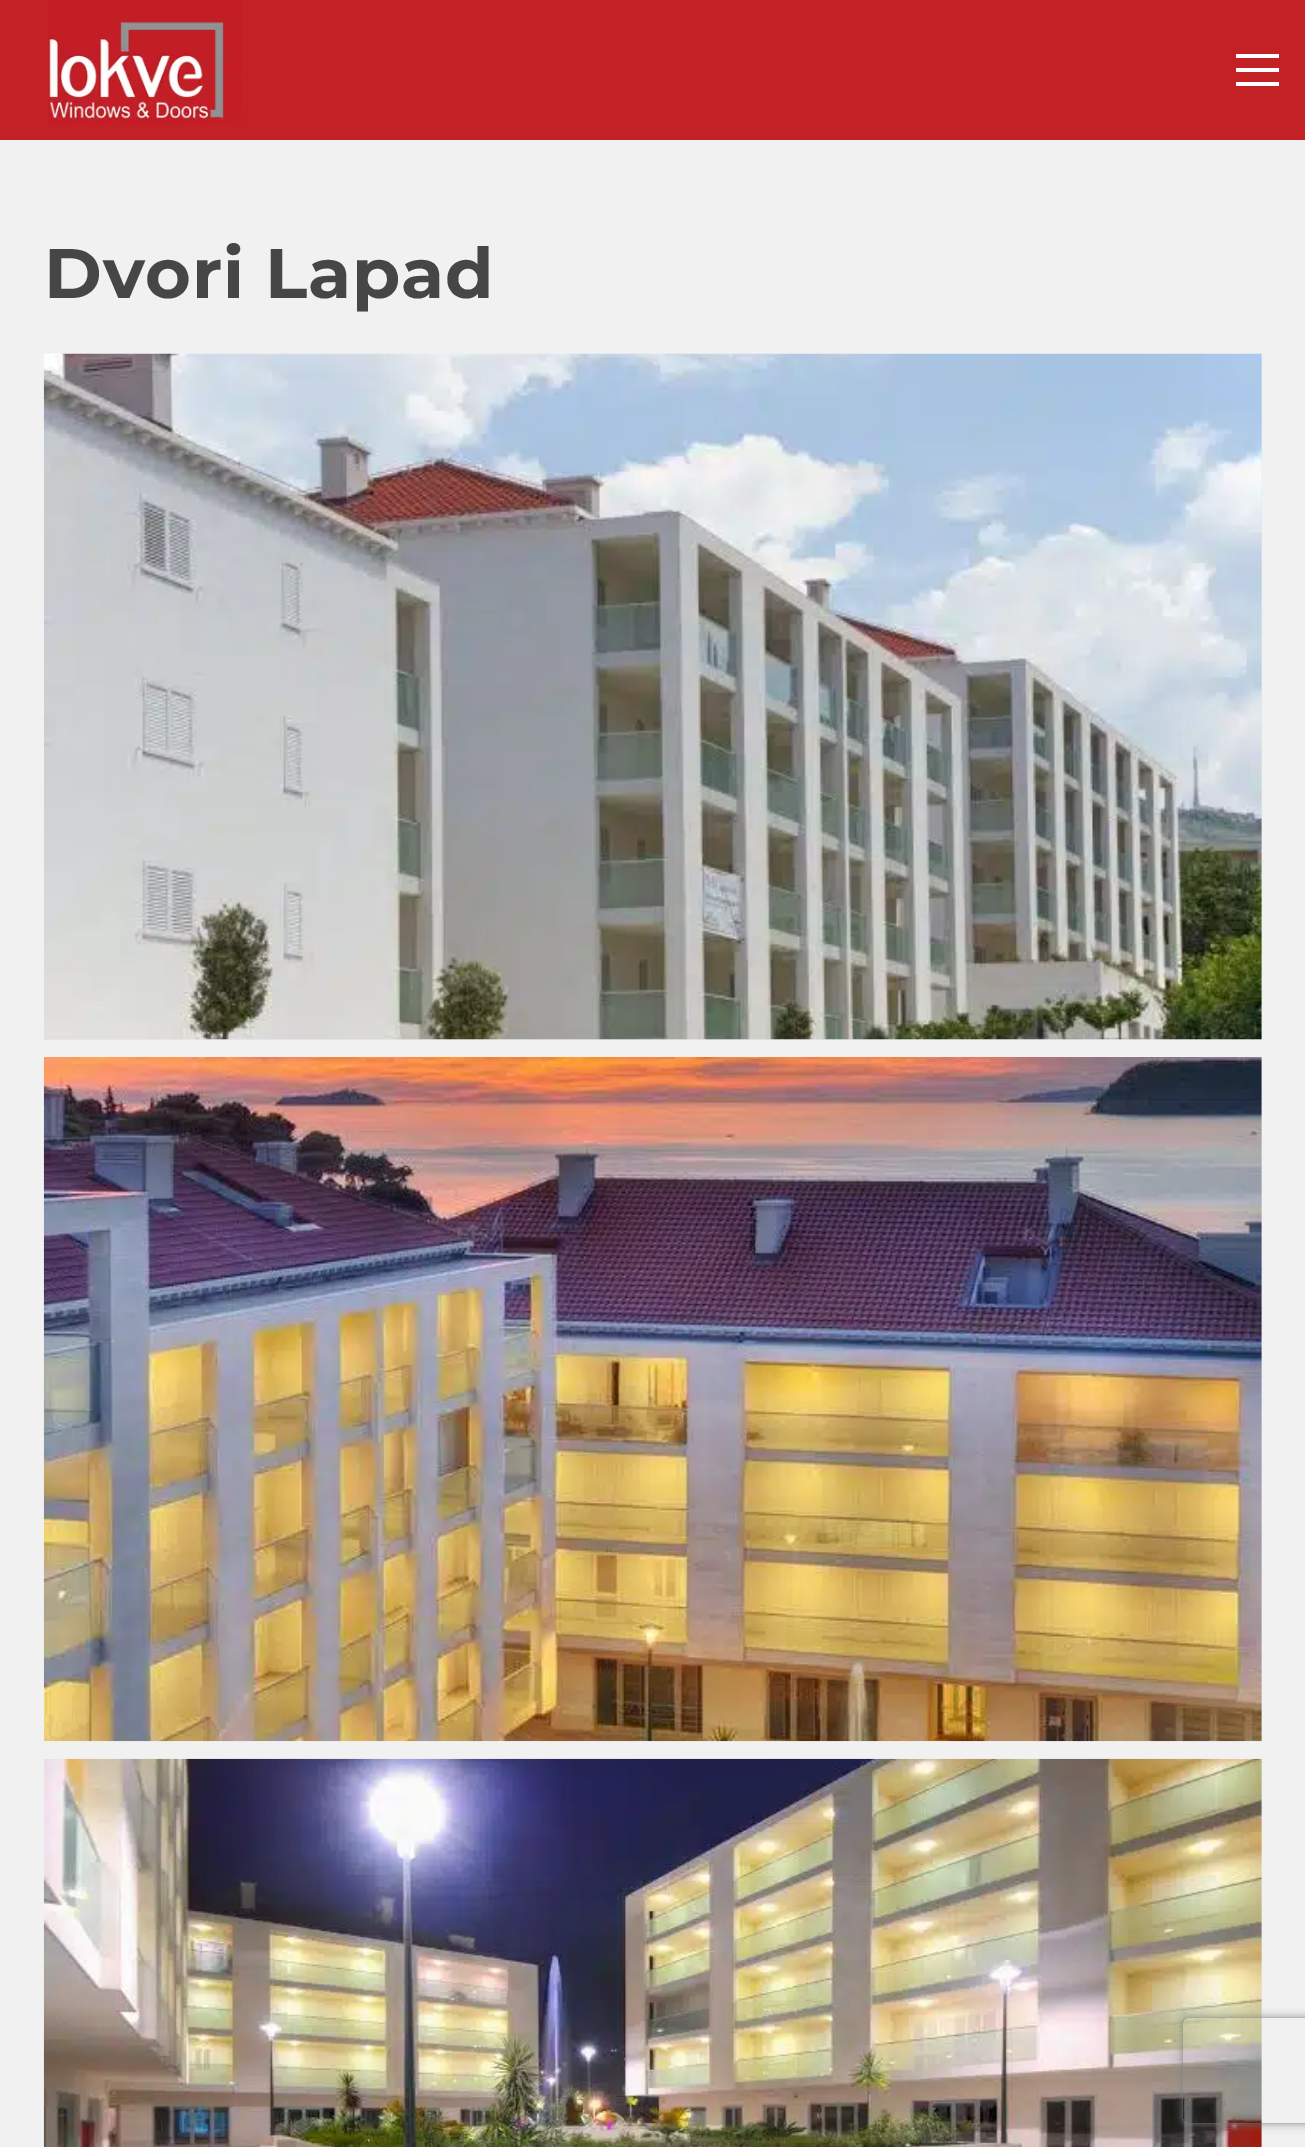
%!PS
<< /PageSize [1305 2147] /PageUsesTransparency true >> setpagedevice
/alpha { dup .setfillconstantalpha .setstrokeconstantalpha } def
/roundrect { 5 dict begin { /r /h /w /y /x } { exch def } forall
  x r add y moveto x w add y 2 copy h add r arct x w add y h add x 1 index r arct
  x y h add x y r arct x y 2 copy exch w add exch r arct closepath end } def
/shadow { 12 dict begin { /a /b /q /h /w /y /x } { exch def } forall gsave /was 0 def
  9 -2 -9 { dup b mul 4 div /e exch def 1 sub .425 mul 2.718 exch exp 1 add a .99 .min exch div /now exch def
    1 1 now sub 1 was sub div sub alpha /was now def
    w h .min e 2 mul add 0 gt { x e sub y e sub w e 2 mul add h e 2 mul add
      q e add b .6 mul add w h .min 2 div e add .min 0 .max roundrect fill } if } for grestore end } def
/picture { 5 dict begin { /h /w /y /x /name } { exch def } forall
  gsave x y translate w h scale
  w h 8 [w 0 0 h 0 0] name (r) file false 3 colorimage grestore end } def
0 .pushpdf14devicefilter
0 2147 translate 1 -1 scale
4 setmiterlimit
0.945 setgray
0 0 1305 2147 rectfill
0.765 0.129 0.149 setrgbcolor
0 0 1305 140 rectfill
(img1.rgb) 48 0 193 126 picture
1 setgray
1236 68 43 4 rectfill
1236 54 43 4 rectfill
1236 82 43 4 rectfill
/Montserrat-Bold [70 0 0 -70 0 0] selectfont
0.275 setgray
44 298 moveto 0.75 0 (Dvori Lapad) ashow
0.878 0.91 0.933 setrgbcolor
44 354 1218 686 rectfill
(img2.rgb) 43 353 1219 687 picture
1261 1057 1 684 rectfill
(img3.rgb) 43 1057 1219 685 picture
1261 1759 1 388 rectfill
(img4.rgb) 43 1758 1219 389 picture
gsave
newpath 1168 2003 moveto 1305 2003 lineto 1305 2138 lineto 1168 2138 lineto closepath 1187 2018 moveto 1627 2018 lineto 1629 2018 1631 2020 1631 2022 curveto 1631 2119 lineto 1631 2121 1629 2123 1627 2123 curveto 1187 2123 lineto 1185 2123 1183 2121 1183 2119 curveto 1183 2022 lineto 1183 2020 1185 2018 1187 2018 curveto closepath eoclip newpath
0.502 setgray
1183 2018 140 105 4 4.5 1 shadow
grestore
.poppdf14devicefilter showpage
